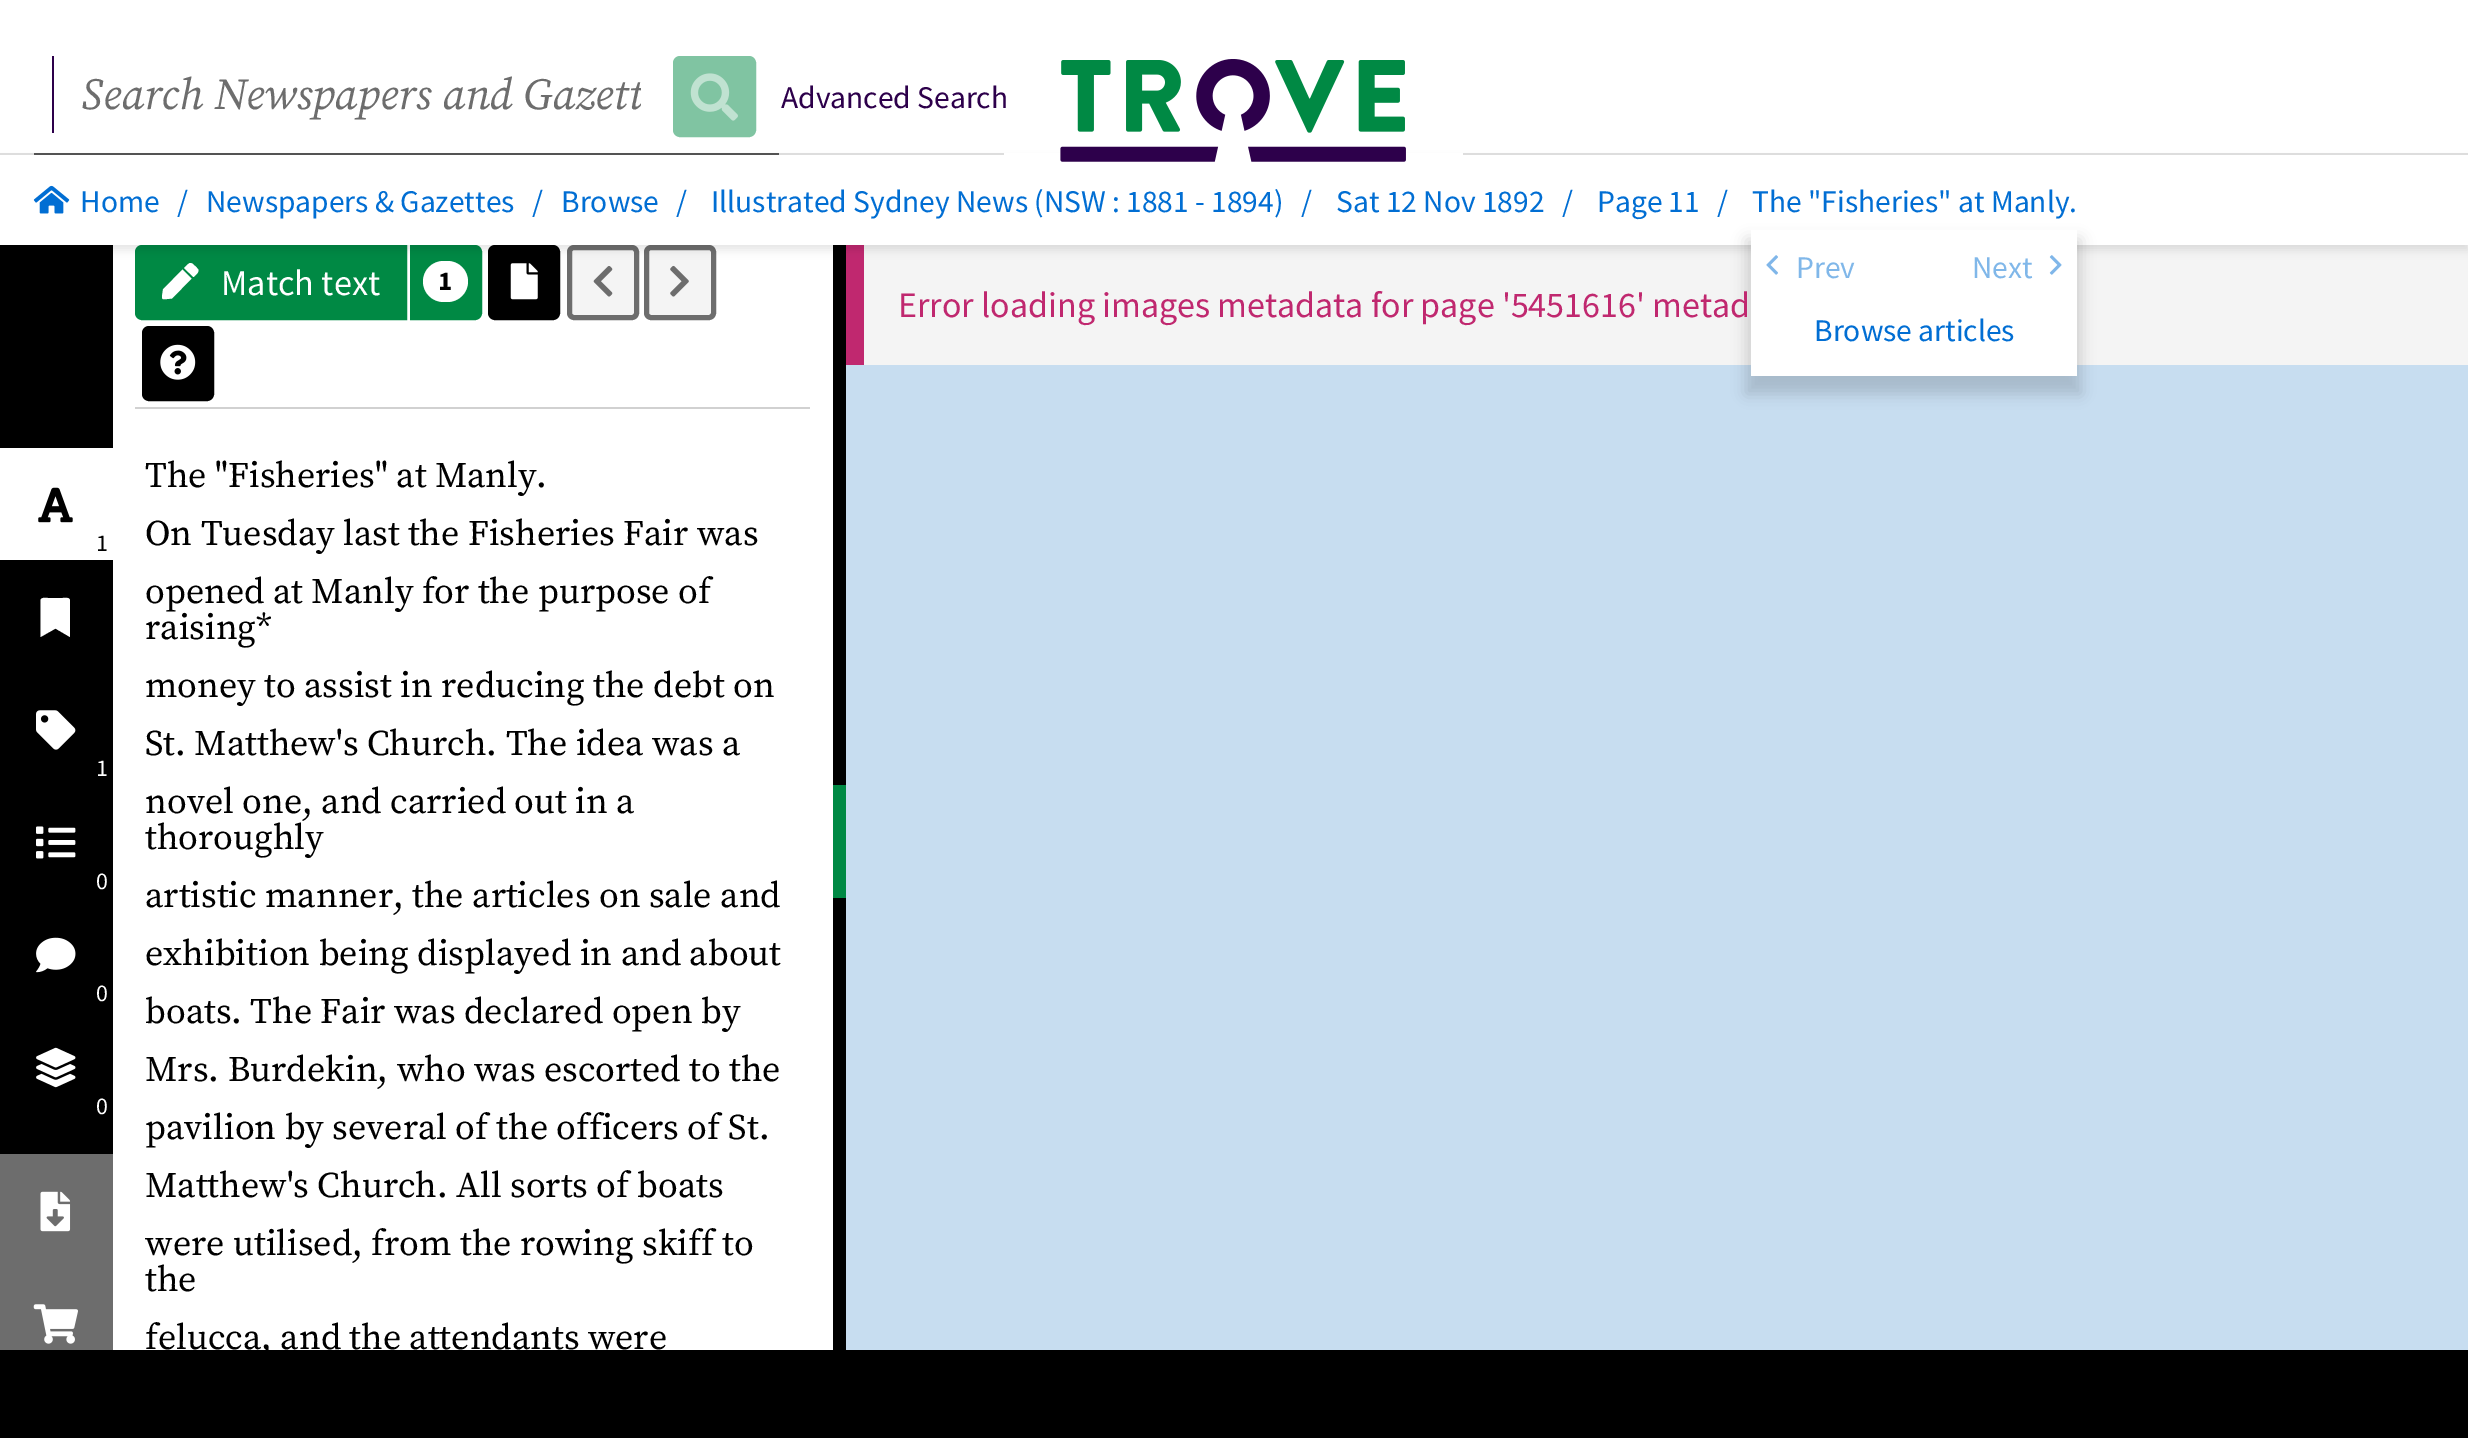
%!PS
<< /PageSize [2468 1438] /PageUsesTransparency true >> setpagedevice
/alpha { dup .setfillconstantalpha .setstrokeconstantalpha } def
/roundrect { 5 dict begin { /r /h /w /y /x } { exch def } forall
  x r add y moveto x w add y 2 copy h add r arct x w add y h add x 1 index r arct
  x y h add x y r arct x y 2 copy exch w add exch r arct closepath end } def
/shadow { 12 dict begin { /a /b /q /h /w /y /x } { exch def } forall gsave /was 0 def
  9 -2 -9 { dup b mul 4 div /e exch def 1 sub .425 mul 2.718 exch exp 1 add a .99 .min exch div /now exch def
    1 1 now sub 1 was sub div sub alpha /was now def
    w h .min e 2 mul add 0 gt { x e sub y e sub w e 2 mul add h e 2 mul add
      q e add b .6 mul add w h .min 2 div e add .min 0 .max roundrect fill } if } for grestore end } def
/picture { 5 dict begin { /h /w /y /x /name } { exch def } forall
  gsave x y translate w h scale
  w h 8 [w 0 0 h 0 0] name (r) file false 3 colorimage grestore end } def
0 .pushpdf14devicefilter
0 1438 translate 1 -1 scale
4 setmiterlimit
1 setgray
0 0 2468 1438 rectfill
0 setgray
0 245 113 909 rectfill
0 0.537 0.267 setrgbcolor
newpath 142 247.5 moveto 404.5 247.5 lineto 404.5 317.5 lineto 142 317.5 lineto 139.5 317.5 137.5 315.5 137.5 313 curveto 137.5 252 lineto 137.5 249.5 139.5 247.5 142 247.5 curveto closepath gsave fill grestore
5 setlinewidth
stroke
1 setgray
newpath 182.5 269.5 moveto 191.5 278.5 lineto 172 298.5 lineto 160 299.5 161.5 301 163 289.5 curveto closepath 197.5 268.5 moveto 200.5 271.5 195.5 275 193.5 277 curveto 184 268 lineto 191 261 190.5 261.5 197.5 268.5 curveto closepath fill
0 0.537 0.267 setrgbcolor
newpath 412.5 247.5 moveto 475 247.5 lineto 477.5 247.5 479.5 249.5 479.5 252 curveto 479.5 313 lineto 479.5 315.5 477.5 317.5 475 317.5 curveto 412.5 317.5 lineto closepath gsave fill grestore
stroke
1 setgray
423 261 45 41 20.5 roundrect fill
0 setgray
490.5 247.5 67 70 4.5 roundrect gsave fill grestore
stroke
(img13.rgb) 510 263 28 37 picture
0.957 setgray
569.5 247.5 67 70 4.5 roundrect gsave fill grestore
0.427 setgray
stroke
0.957 setgray
646.5 247.5 67 70 4.5 roundrect gsave fill grestore
0.427 setgray
stroke
0 setgray
833 245 13 1105 rectfill
0.957 setgray
864 245 1604 120 rectfill
0.753 0.157 0.435 setrgbcolor
846 245 18 120 rectfill
0 setgray
0 160 2468 90 0 4.5 0.1 shadow
0.867 setgray
0 153 2468 2 rectfill
0.176 0 0.294 setrgbcolor
52 56 2 77 rectfill
gsave
81 65 560 61 rectclip
/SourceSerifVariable-Italic [44.1 0 0 -44.1 0 0] selectfont
0.427 setgray
81 109 moveto (Search Newspapers and Gazett) show
grestore
0.502 0.769 0.635 setrgbcolor
675.5 58.5 78 76 4.5 roundrect gsave fill grestore
stroke
(img1.rgb) 690 73 48 48 picture
/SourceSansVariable-Regular [31.5 0 0 -31.5 0 0] selectfont
0.176 0 0.294 setrgbcolor
781 108 moveto (Advanced Search) show
0.325 setgray
34 153 745 2 rectfill
1 setgray
1004 153 459 2 rectfill
0 155 2468 90 rectfill
(img2.rgb) 1060 59 346 103 picture
(img3.rgb) 33 185 37 29 picture
0.004 0.431 0.827 setrgbcolor
80 212 moveto (Home) show
177 212 moveto (/) show
206 212 moveto (Newspapers & Gazettes) show
532 212 moveto (/) show
561 212 moveto (Browse) show
676 212 moveto (/) show
711 212 moveto (Illustrated Sydney News \(NSW : 1881 - 1894\)) show
1301 212 moveto (/) show
1336 212 moveto (Sat 12 Nov 1892) show
1562 212 moveto (/) show
1597 212 moveto (Page 11) show
1717 212 moveto (/) show
1752 212 moveto (The "Fisheries" at Manly.) show
0.78 0.867 0.941 setrgbcolor
846 365 1622 985 rectfill
0 setgray
1746 239 335 155 0 7 0.15 shadow
1 setgray
1751 230 326 146 rectfill
(img4.rgb) 1766 255 12 20 picture
0.502 0.718 0.914 setrgbcolor
1796 278 moveto (Prev) show
1972 278 moveto (Next) show
(img5.rgb) 2049 255 13 20 picture
0.004 0.431 0.827 setrgbcolor
1814 341 moveto (Browse articles) show
1 setgray
0 448 113 112 rectfill
(img6.rgb) 38 487 35 36 picture
/SourceSansVariable-Regular [24 0 0 -24 0 0] selectfont
0 setgray
96 551 moveto (1) show
1 setgray
newpath 40.5 637 moveto 40.5 600.5 lineto 41 597 45.5 598 48 598 curveto 62.5 598 lineto 65.5 598 69.5 597 70 600.5 curveto 70 637 lineto 55.5 628.5 lineto closepath fill
(img7.rgb) 36 710 40 40 picture
96 776 moveto (1) show
(img8.rgb) 36 826 40 33 picture
96 889 moveto (0) show
(img9.rgb) 36 937 40 36 picture
96 1001 moveto (0) show
(img10.rgb) 36 1047 40 41 picture
96 1114 moveto (0) show
0.427 setgray
0 1154 113 196 rectfill
(img11.rgb) 40 1191 31 41 picture
(img12.rgb) 33 1304 45 40 picture
/SourceSansVariable-Regular [36.25 0 0 -36.25 0 0] selectfont
1 setgray
221 295 moveto (Match text) show
/SourceSansVariable-Bold [27 0 0 -27 0 0] selectfont
0 setgray
438 290 moveto (1) show
(img14.rgb) 593 266 20 31 picture
(img15.rgb) 670 265 19 32 picture
144.5 328.5 67 70 4.5 roundrect gsave fill grestore
stroke
(img16.rgb) 160 344 36 36 picture
0.82 setgray
135 407 675 2 rectfill
/SourceSerifVariable-Regular [36 0 0 -36 0 0] selectfont
0 setgray
145 487 moveto (The "Fisheries" at Manly.) show
145 545 moveto (On Tuesday last the Fisheries Fair was) show
145 603 moveto (opened at Manly for the purpose of) show
145 639 moveto (raising*) show
145 697 moveto (money to assist in reducing the debt on) show
145 755 moveto (St. Matthew's Church. The idea was a) show
145 813 moveto (novel one, and carried out in a) show
145 849 moveto (thoroughly) show
145 907 moveto (artistic manner, the articles on sale and) show
145 965 moveto (exhibition being displayed in and about) show
145 1023 moveto (boats. The Fair was declared open by) show
145 1081 moveto (Mrs. Burdekin, who was escorted to the) show
145 1139 moveto (pavilion by several of the officers of St.) show
145 1197 moveto (Matthew's Church. All sorts of boats) show
145 1255 moveto (were utilised, from the rowing skiff to) show
145 1291 moveto (the) show
145 1349 moveto (felucca, and the attendants were) show
0 0.537 0.267 setrgbcolor
833 785 13 113 rectfill
/SourceSansVariable-Regular [36 0 0 -36 0 0] selectfont
0.753 0.157 0.435 setrgbcolor
898 317 moveto (Error loading images metadata for page '5451616' metad) show
0 setgray
0 1350 2468 88 rectfill
.poppdf14devicefilter showpage
